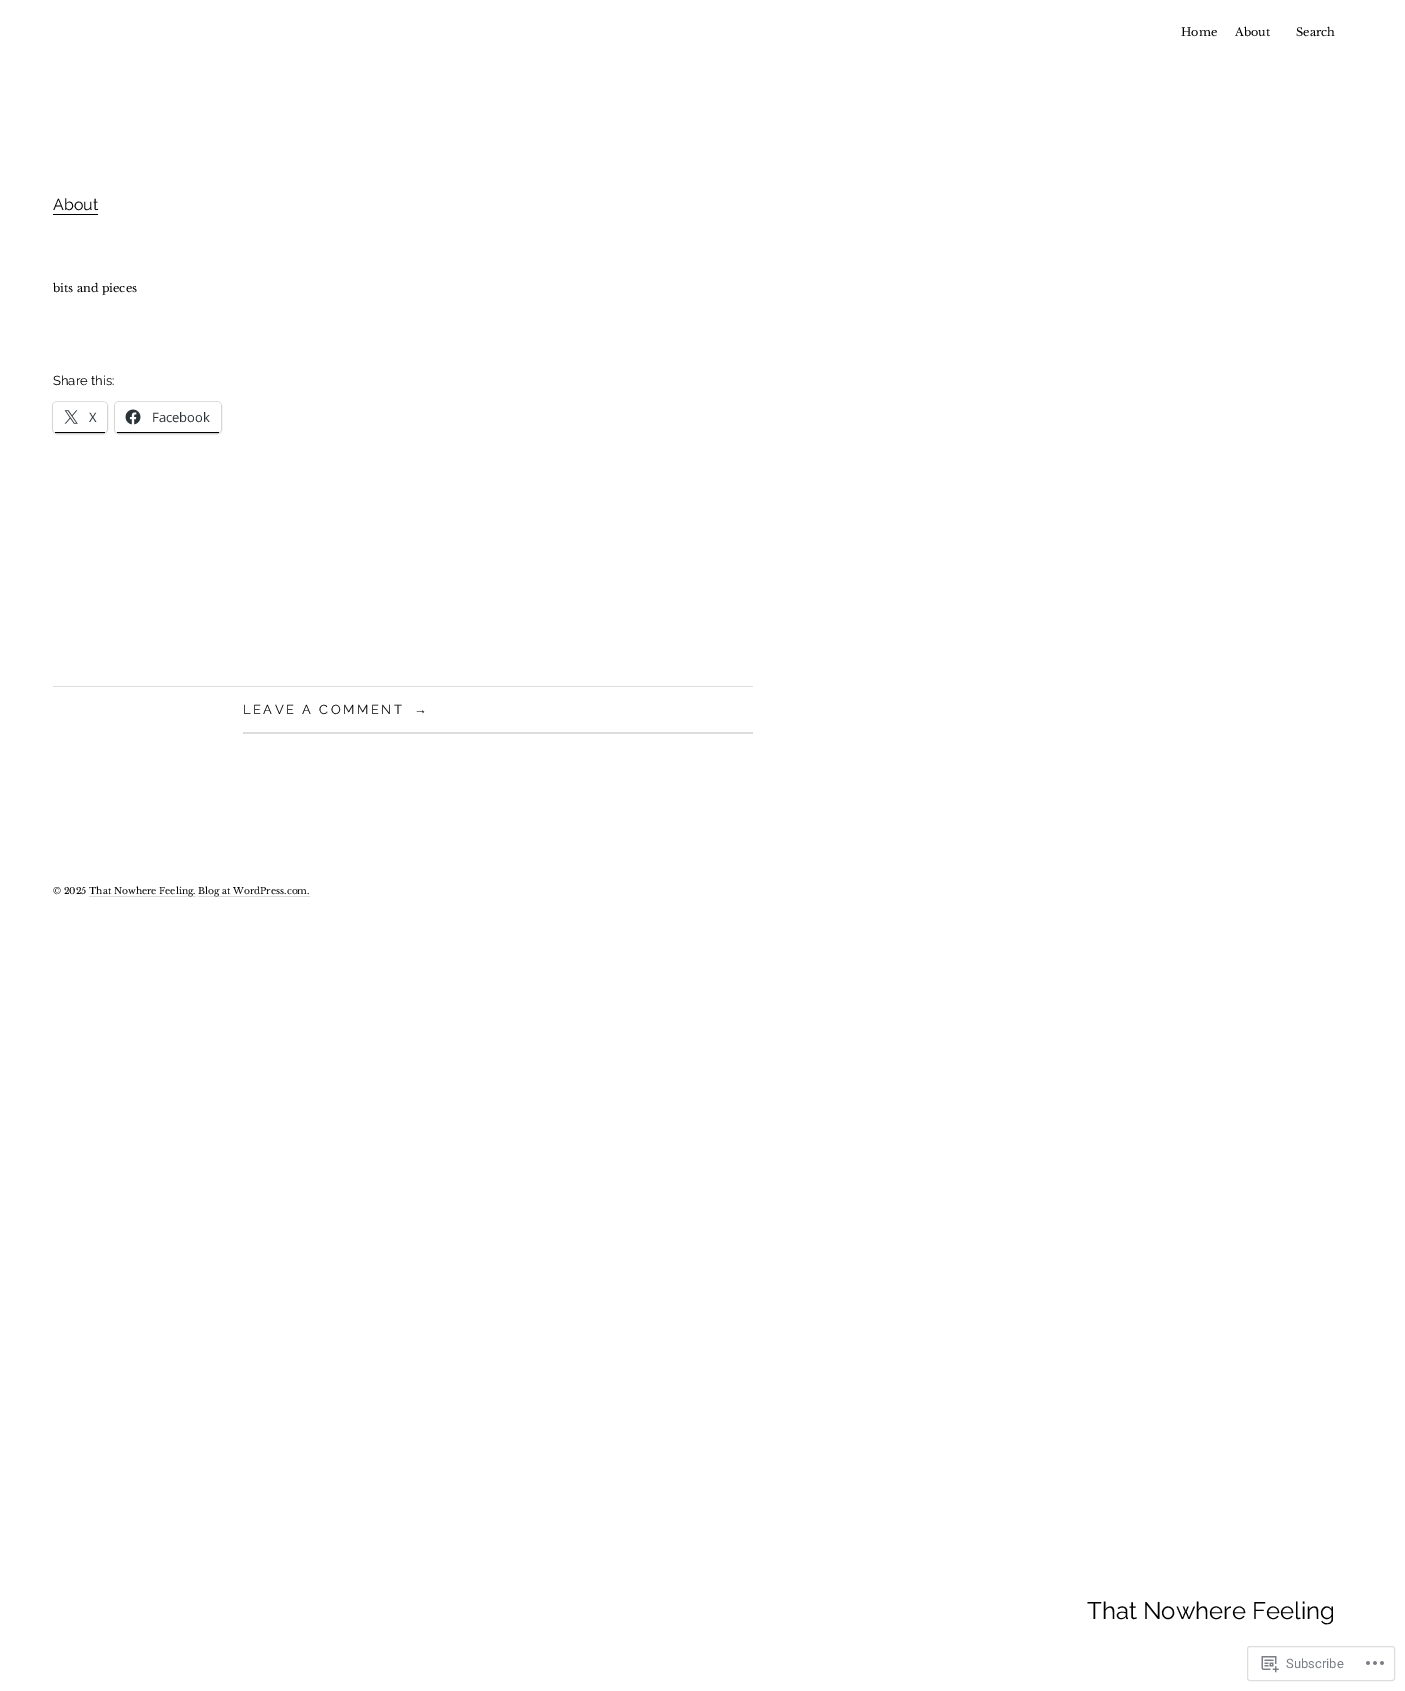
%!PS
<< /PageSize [1405 1691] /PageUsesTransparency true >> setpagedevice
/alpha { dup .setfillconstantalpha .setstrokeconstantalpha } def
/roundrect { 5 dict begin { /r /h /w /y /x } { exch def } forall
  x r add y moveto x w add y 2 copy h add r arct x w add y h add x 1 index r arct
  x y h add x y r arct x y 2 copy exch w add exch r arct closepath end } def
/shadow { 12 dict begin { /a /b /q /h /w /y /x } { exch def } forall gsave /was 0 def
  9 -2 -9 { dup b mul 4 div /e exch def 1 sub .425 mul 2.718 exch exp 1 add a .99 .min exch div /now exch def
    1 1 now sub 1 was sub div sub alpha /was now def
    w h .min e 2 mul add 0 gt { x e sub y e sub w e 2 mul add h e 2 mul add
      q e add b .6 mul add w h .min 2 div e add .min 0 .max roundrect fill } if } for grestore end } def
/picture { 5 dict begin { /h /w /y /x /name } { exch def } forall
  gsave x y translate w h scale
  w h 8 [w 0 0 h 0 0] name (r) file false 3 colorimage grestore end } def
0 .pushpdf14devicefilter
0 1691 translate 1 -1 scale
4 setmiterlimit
1 setgray
0 0 1405 1691 rectfill
/Raleway-Thin [16 0 0 -16 0 0] selectfont
0 setgray
53 210 moveto (About) show
53 214 45 1 rectfill
/LibreBaskerville-Regular [11.25 0 0 -11.25 0 0] selectfont
53 292 moveto (bits and pieces) show
/Raleway-Thin [13 0 0 -13 0 0] selectfont
53 385 moveto (Share this:) show
0.878 setgray
52.5 401.5 55 32 4.5 roundrect stroke
0 setgray
53 403 54 31 4 1 0.12 shadow
1 setgray
53 402 54 31 4 roundrect fill
0 setgray
55 432 50 1 rectfill
(img1.rgb) 64 410 14 14 picture
/OpenSans-Regular [13 0 0 -13 0 0] selectfont
0.173 0.2 0.22 setrgbcolor
89 422 moveto (X) show
0.878 setgray
114.5 401.5 107 32 4.5 roundrect stroke
0 setgray
115 403 106 31 4 1 0.12 shadow
1 setgray
115 402 106 31 4 roundrect fill
0 setgray
117 432 102 1 rectfill
(img2.rgb) 125 409 16 16 picture
0.173 0.2 0.22 setrgbcolor
152 422 moveto (Facebook) show
0.867 setgray
53 686 700 1 rectfill
/Raleway-Thin [13 0 0 -13 0 0] selectfont
0 setgray
243 714 moveto 2.5 0 (LEAVE A COMMENT) ashow
/LiberationSans-Regular [13 0 0 -13 0 0] selectfont
414 714 moveto 2.5 0 (→) ashow
0.863 0.863 0.871 setrgbcolor
243 732 510 2 rectfill
/LibreBaskerville-Regular [11.25 0 0 -11.25 0 0] selectfont
0 setgray
1181 36 moveto (Home) show
1235 36 moveto (About) show
1296 36 moveto (Search) show
/Raleway-Thin [24 0 0 -24 0 0] selectfont
1087 1619 moveto (That Nowhere Feeling) show
/LibreBaskerville-Regular [9.1 0 0 -9.1 0 0] selectfont
53 894 moveto (© 2025) show
0.859 setgray
89 896 107 1 rectfill
0 setgray
89 894 moveto (That Nowhere Feeling.) show
0.859 setgray
198 896 112 1 rectfill
0 setgray
198 894 moveto (Blog at WordPress.com.) show
0.867 0.867 0.875 setrgbcolor
1247.5 1646.5 147 34 2.5 roundrect stroke
(img3.rgb) 1261 1656 18 17 picture
/Roboto-Regular [13 0 0 -13 0 0] selectfont
0.482 0.498 0.522 setrgbcolor
1286 1668 moveto (Subscribe) show
(img4.rgb) 1366 1661 18 4 picture
.poppdf14devicefilter showpage
